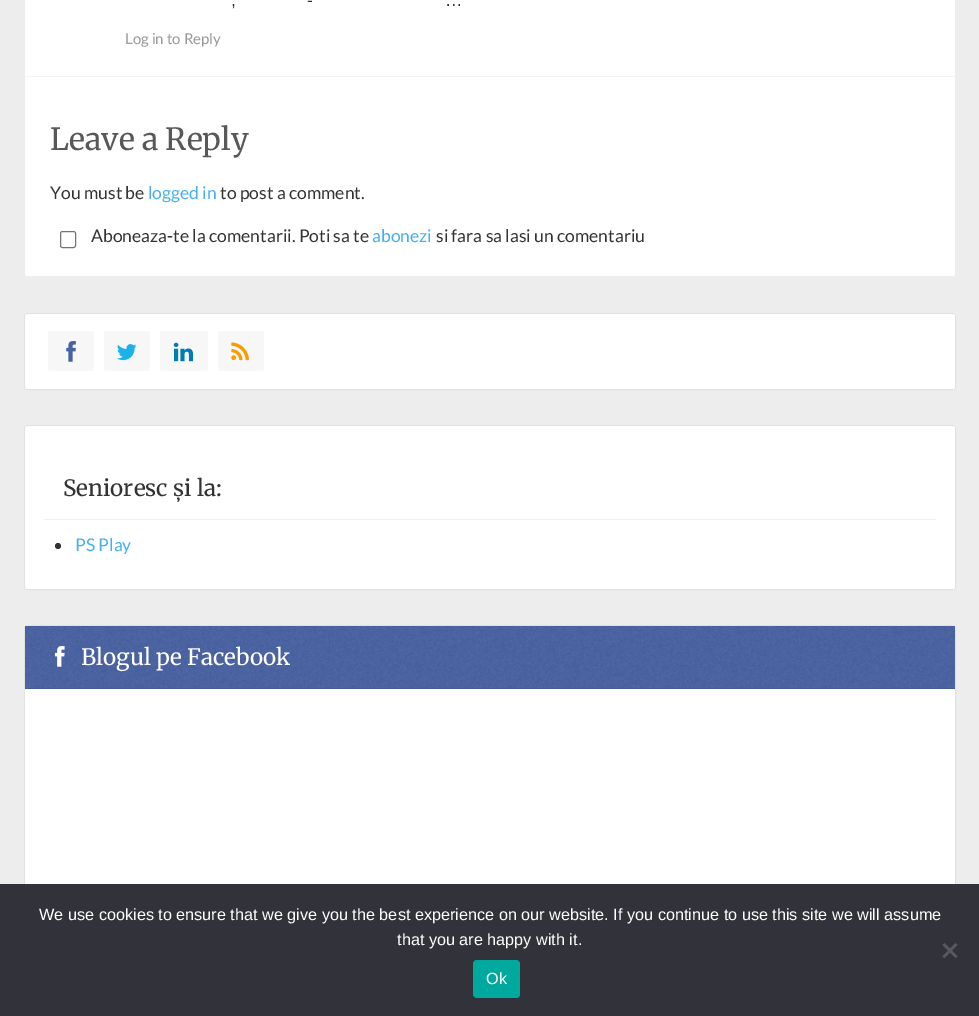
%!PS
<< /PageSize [979 1016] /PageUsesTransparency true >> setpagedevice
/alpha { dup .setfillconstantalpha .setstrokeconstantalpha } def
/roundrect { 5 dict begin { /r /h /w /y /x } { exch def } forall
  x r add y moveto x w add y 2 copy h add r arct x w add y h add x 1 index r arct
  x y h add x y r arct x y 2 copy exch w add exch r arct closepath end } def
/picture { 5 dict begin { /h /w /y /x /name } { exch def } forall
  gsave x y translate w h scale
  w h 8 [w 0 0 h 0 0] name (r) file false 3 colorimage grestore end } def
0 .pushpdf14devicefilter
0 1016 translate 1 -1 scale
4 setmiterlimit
0.929 setgray
0 0 979 1016 rectfill
1 setgray
25 -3 930 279 2.5 roundrect fill
0.957 setgray
25 76 930 1 rectfill
/LiberationSans-Regular [17.5 0 0 -17.5 0 0] selectfont
0.2 setgray
307 6 moveto -2 0 32 (-) widthshow
231 6 moveto -2 0 32 (,) widthshow
445 6 moveto -2 0 32 (…) widthshow
/Lato-Regular [15 0 0 -15 0 0] selectfont
0.6 setgray
125 44 moveto (Log in to Reply) show
/Merriweather-Regular [30.5 0 0 -30.5 0 0] selectfont
0.345 setgray
50 150 moveto (Leave a Reply) show
/Lato-Regular [17.5 0 0 -17.5 0 0] selectfont
0.2 setgray
50 199 moveto (You must be) show
0.271 0.69 0.933 setrgbcolor
148 199 moveto (logged in) show
0.2 setgray
220 199 moveto (to post a comment.) show
0.463 setgray
60.5 231.5 15 16 2 roundrect stroke
0.2 setgray
91 242 moveto (Aboneaza-te la comentarii. Poti sa te) show
0.271 0.69 0.933 setrgbcolor
372 242 moveto (abonezi) show
0.2 setgray
436 242 moveto (si fara sa lasi un comentariu) show
0.882 setgray
24.5 313.5 931 76 3.5 roundrect stroke
1 setgray
25 314 930 75 2.5 roundrect fill
0.969 setgray
48 331 46 40 2.5 roundrect fill
(img1.rgb) 66 341 10 21 picture
104 331 46 40 2.5 roundrect fill
(img2.rgb) 117 344 20 17 picture
160 331 48 40 2.5 roundrect fill
(img3.rgb) 173 342 21 20 picture
218 331 46 40 2.5 roundrect fill
(img4.rgb) 231 342 18 19 picture
0.882 setgray
24.5 425.5 931 164 3.5 roundrect stroke
1 setgray
25 426 930 163 2.5 roundrect fill
0.941 setgray
44 519 892 1 rectfill
/Merriweather-Regular [22.5 0 0 -22.5 0 0] selectfont
0.2 setgray
63 496 moveto (Senioresc și la:) show
newpath 58 546 3 0 360 arc closepath fill
/Lato-Regular [17.5 0 0 -17.5 0 0] selectfont
0.271 0.69 0.933 setrgbcolor
75 551 moveto (PS Play) show
0.882 setgray
24.5 625.5 931 374 3.5 roundrect stroke
0.282 0.38 0.639 setrgbcolor
25 626 930 63 rectfill
(img5.rgb) 25 626 930 63 picture
0.06 alpha
0 setgray
25 688 930 1 rectfill
1 alpha
(img6.rgb) 54 646 11 21 picture
/Merriweather-Regular [22.5 0 0 -22.5 0 0] selectfont
1 setgray
81 665 moveto (Blogul pe Facebook) show
25 689 930 195 rectfill
0.196 0.196 0.227 setrgbcolor
0 884 979 132 rectfill
/LiberationSans-Regular [16.25 0 0 -16.25 0 0] selectfont
1 setgray
39 920 moveto (We use cookies to ensure that we give you the best experience on our website. If you continue to use this site we will assume) show
397 945 moveto (that you are happy with it.) show
0.349 0.349 0.365 setrgbcolor
newpath 955.5 943 moveto 957.5 945 lineto 944.5 958 lineto 942.5 956.5 lineto closepath fill
newpath 942.5 945 moveto 944.5 943 lineto 957.5 956.5 lineto 955.5 958 lineto closepath fill
0 0.663 0.616 setrgbcolor
473 960 47 38 4 roundrect fill
1 setgray
486 984 moveto (Ok) show
.poppdf14devicefilter showpage
